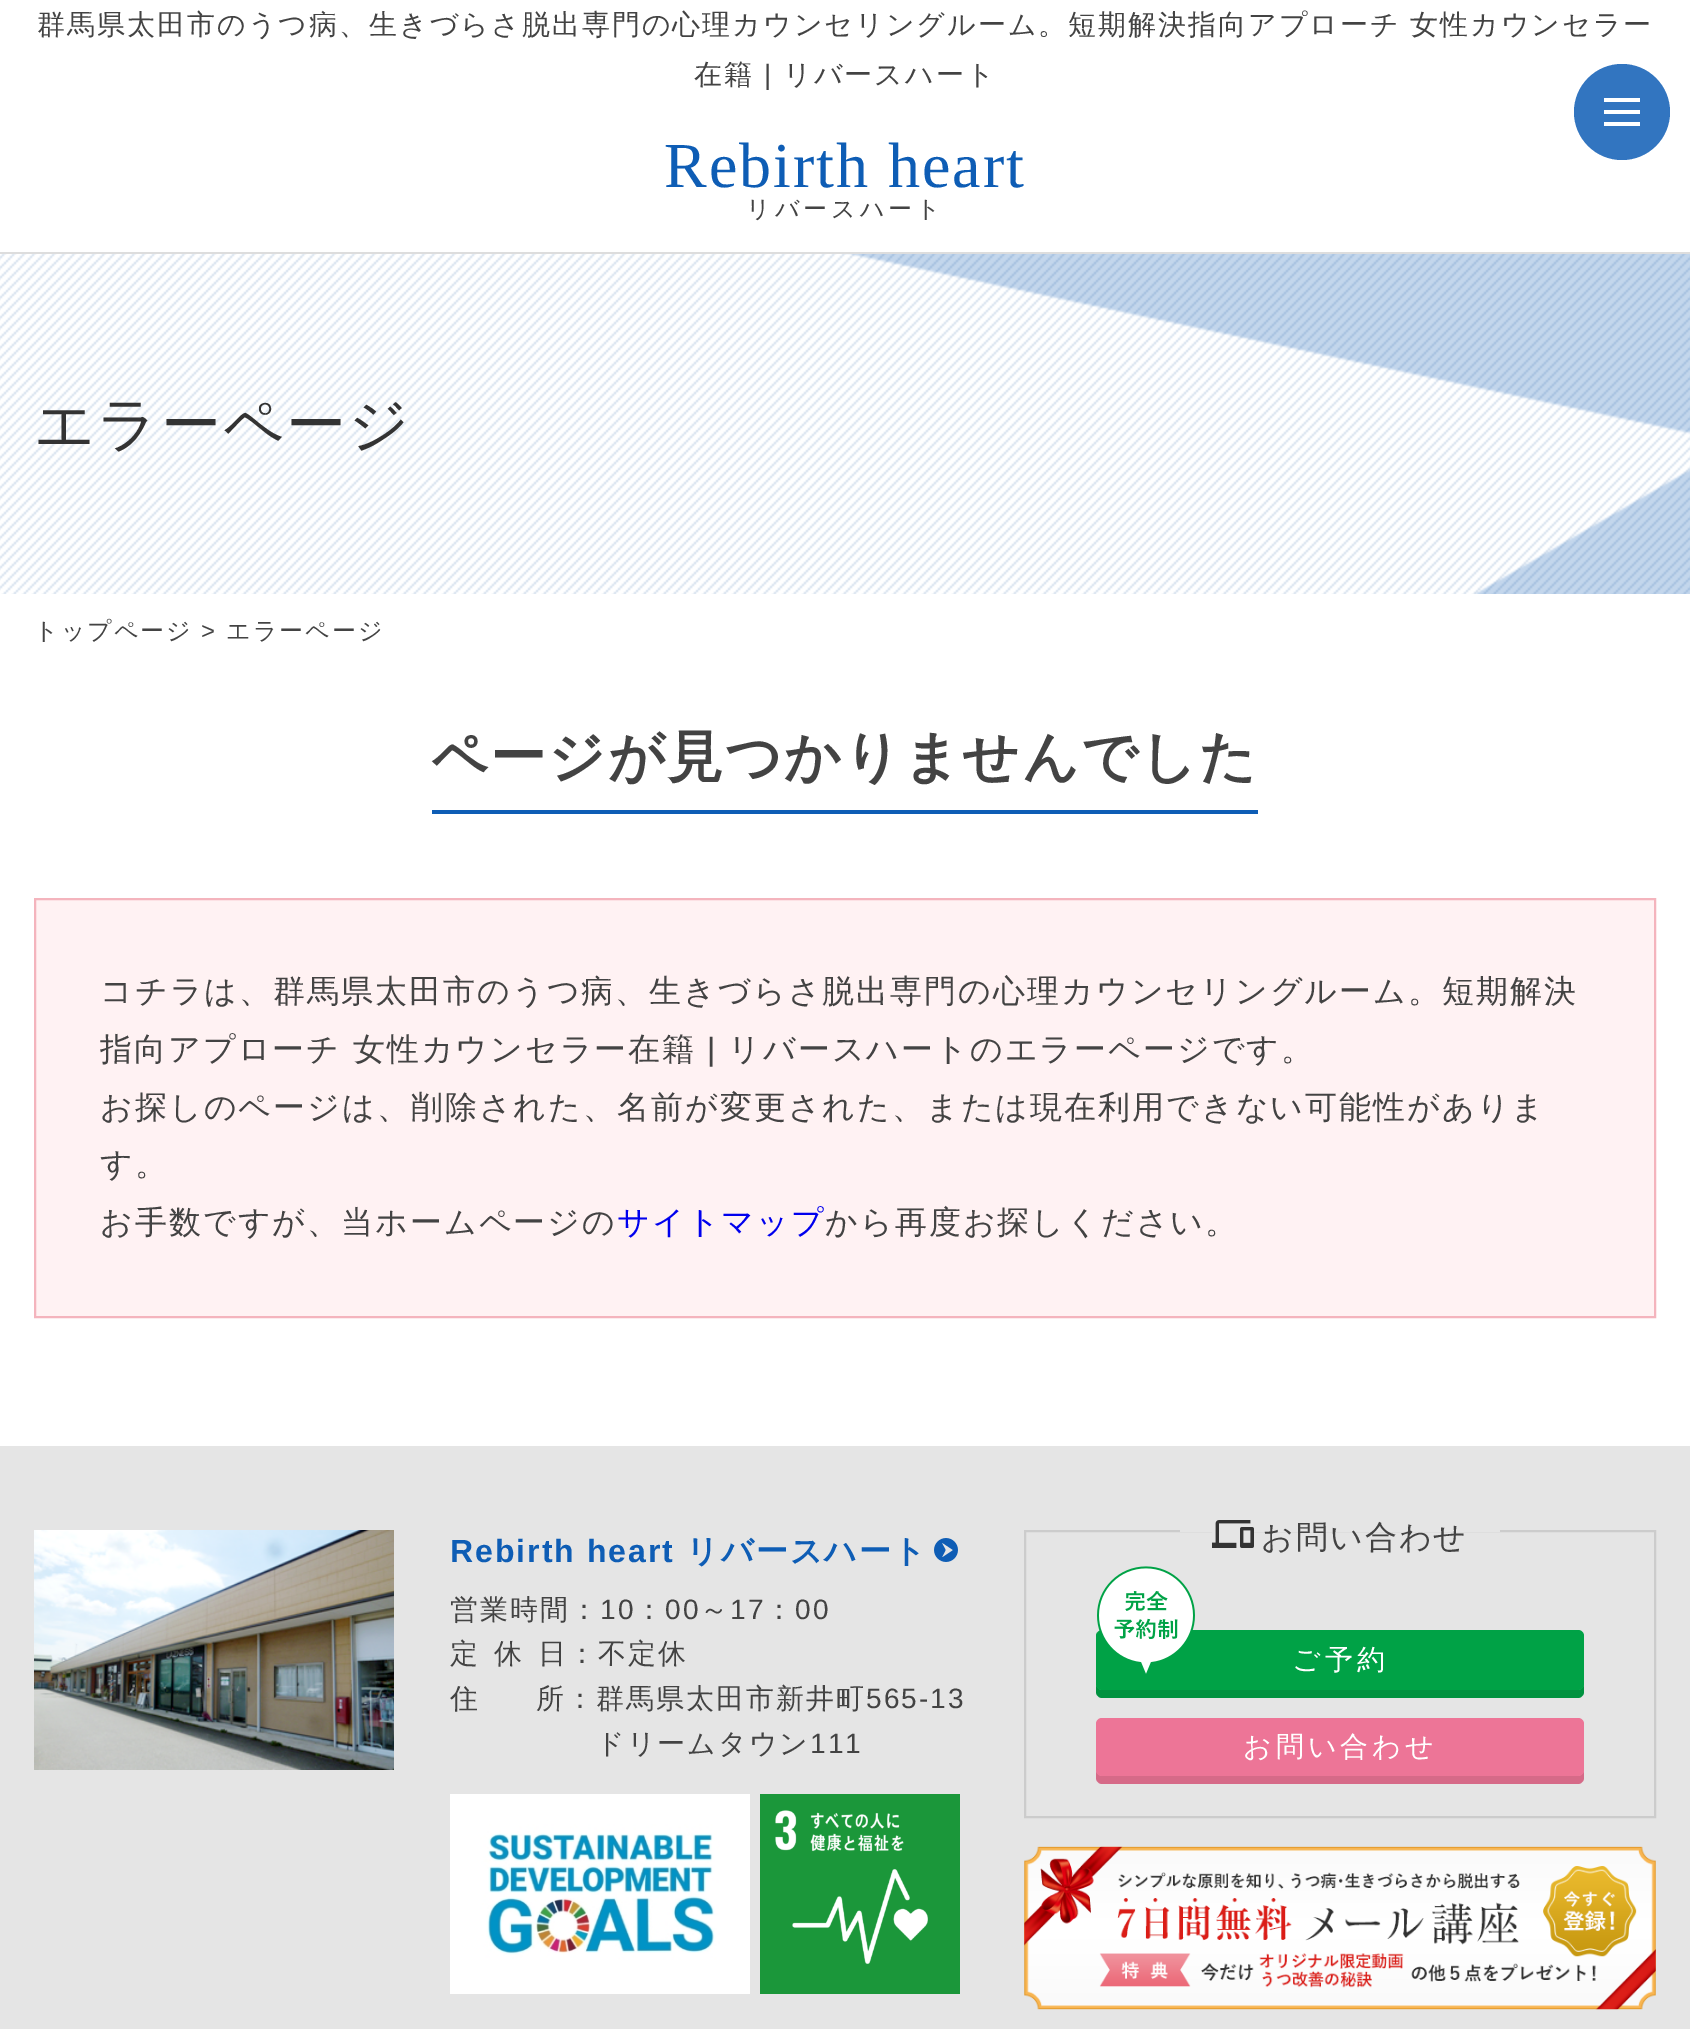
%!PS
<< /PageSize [1690 2029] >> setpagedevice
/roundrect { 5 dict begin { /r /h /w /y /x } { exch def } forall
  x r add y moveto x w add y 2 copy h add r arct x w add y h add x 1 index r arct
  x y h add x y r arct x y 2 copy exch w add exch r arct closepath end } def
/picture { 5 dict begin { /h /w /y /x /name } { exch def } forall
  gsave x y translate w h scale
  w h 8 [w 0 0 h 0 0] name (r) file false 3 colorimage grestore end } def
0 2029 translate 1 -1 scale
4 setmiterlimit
1 setgray
0 0 1690 2029 rectfill
/WenQuanYiZenHei-Medium [28 0 0 -28 0 0] selectfont
0.263 setgray
37 34 moveto -1 0 32 2 0 (群馬県太田市のうつ病、生きづらさ脱出専門の心理カウンセリングルーム。短期解決指向アプローチ 女性カウンセラー) awidthshow
694 84 moveto 2 0 (在籍) ashow
/LiberationSans-Regular [28 0 0 -28 0 0] selectfont
764 84 moveto 2 0 (|) ashow
/WenQuanYiZenHei-Medium [28 0 0 -28 0 0] selectfont
783 84 moveto 2 0 (リバースハート) ashow
/LiberationSerif-Regular [64 0 0 -64 0 0] selectfont
0.055 0.365 0.71 setrgbcolor
664 187 moveto 2 0 (Rebirth heart) ashow
/WenQuanYiZenHei-Medium [24 0 0 -24 0 0] selectfont
0.263 setgray
746 217 moveto 4 0 (リバースハート) ashow
0.196 0.459 0.753 setrgbcolor
newpath 1622 112 48 0 360 arc closepath fill
1 setgray
1604 110 36 4 rectfill
1604 98 36 4 rectfill
1604 122 36 4 rectfill
(img1.rgb) 0 254 1690 340 picture
0.867 setgray
0 252 1690 2 rectfill
/WenQuanYiZenHei-Medium [60 0 0 -60 0 0] selectfont
0.2 setgray
34 445 moveto 2 0 (エラーページ) ashow
/WenQuanYiZenHei-Medium [24 0 0 -24 0 0] selectfont
0.263 setgray
34 639 moveto 2 0 (トップページ) ashow
/LiberationSans-Regular [24 0 0 -24 0 0] selectfont
201 639 moveto 2 0 (>) ashow
/WenQuanYiZenHei-Medium [24 0 0 -24 0 0] selectfont
226 639 moveto 2 0 (エラーページ) ashow
0.055 0.365 0.71 setrgbcolor
432 810 826 4 rectfill
/WenQuanYiZenHei-Bold [56 0 0 -56 0 0] selectfont
0.263 setgray
431 776 moveto 2 0 (ページが見つかりませんでした) ashow
1 0.949 0.953 setrgbcolor
newpath 35 899 moveto 1655 899 lineto 1655 1317 lineto 35 1317 lineto closepath gsave fill grestore
0.957 0.706 0.741 setrgbcolor
2 setlinewidth
stroke
/WenQuanYiZenHei-Medium [32 0 0 -32 0 0] selectfont
0.263 setgray
100 1002 moveto 2 0 (コチラは、群馬県太田市のうつ病、生きづらさ脱出専門の心理カウンセリングルーム。短期解決) ashow
100 1060 moveto 2 0 (指向アプローチ 女性カウンセラー在籍) ashow
/LiberationSans-Regular [32 0 0 -32 0 0] selectfont
707 1060 moveto 2 0 (|) ashow
/WenQuanYiZenHei-Medium [32 0 0 -32 0 0] selectfont
728 1060 moveto 2 0 (リバースハートのエラーページです。) ashow
100 1118 moveto 2 0 (お探しのページは、削除された、名前が変更された、または現在利用できない可能性がありま) ashow
100 1175 moveto 2 0 (す。) ashow
100 1233 moveto 2 0 (お手数ですが、当ホームページの) ashow
0 0 0.933 setrgbcolor
617 1233 moveto 2 0 (サイトマップ) ashow
0.263 setgray
825 1233 moveto 2 0 (から再度お探しください。) ashow
0.898 setgray
0 1446 1690 583 rectfill
(img2.rgb) 34 1530 360 240 picture
/LiberationSans-Bold [32 0 0 -32 0 0] selectfont
0.055 0.365 0.71 setrgbcolor
450 1562 moveto 2 0 (Rebirth heart) ashow
/WenQuanYiZenHei-Bold [32 0 0 -32 0 0] selectfont
686 1562 moveto 2 0 (リバースハート) ashow
(img3.rgb) 934 1538 24 24 picture
/WenQuanYiZenHei-Medium [28 0 0 -28 0 0] selectfont
0.263 setgray
450 1619 moveto 2 0 (営業時間：) ashow
/LiberationSans-Regular [28 0 0 -28 0 0] selectfont
600 1619 moveto 2 0 (10) ashow
/WenQuanYiZenHei-Medium [28 0 0 -28 0 0] selectfont
635 1619 moveto 2 0 (：) ashow
/LiberationSans-Regular [28 0 0 -28 0 0] selectfont
665 1619 moveto 2 0 (00) ashow
/WenQuanYiZenHei-Medium [28 0 0 -28 0 0] selectfont
700 1619 moveto 2 0 (～) ashow
/LiberationSans-Regular [28 0 0 -28 0 0] selectfont
730 1619 moveto 2 0 (17) ashow
/WenQuanYiZenHei-Medium [28 0 0 -28 0 0] selectfont
765 1619 moveto 2 0 (：) ashow
/LiberationSans-Regular [28 0 0 -28 0 0] selectfont
795 1619 moveto 2 0 (00) ashow
/WenQuanYiZenHei-Medium [28 0 0 -28 0 0] selectfont
450 1663 moveto 2 0 (定) ashow
494 1663 moveto 2 0 (休) ashow
538 1663 moveto 2 0 (日：不定休) ashow
450 1708 moveto 2 0 (住) ashow
536 1708 moveto 2 0 (所：群馬県太田市新井町) ashow
/LiberationSans-Regular [28 0 0 -28 0 0] selectfont
866 1708 moveto 2 0 (565-13) ashow
/WenQuanYiZenHei-Medium [28 0 0 -28 0 0] selectfont
596 1753 moveto 2 0 (ドリームタウン) ashow
/LiberationSans-Regular [28 0 0 -28 0 0] selectfont
810 1753 moveto 2 0 (111) ashow
(img4.rgb) 450 1794 300 200 picture
(img5.rgb) 760 1794 200 200 picture
0.8 setgray
1025 1531 630 286 rectstroke
0.898 setgray
1180 1530 320 2 rectfill
(img6.rgb) 1212 1520 42 28 picture
/WenQuanYiZenHei-Medium [32 0 0 -32 0 0] selectfont
0.263 setgray
1261 1548 moveto 2 0 (お問い合わせ) ashow
0 0.573 0.247 setrgbcolor
newpath 1096 1684 moveto 1096 1692 lineto 1096 1695 1099 1698 1102 1698 curveto 1578 1698 lineto 1581 1698 1584 1695 1584 1692 curveto 1584 1684 lineto 1584 1687 1581 1690 1578 1690 curveto 1102 1690 lineto 1099 1690 1096 1687 1096 1684 curveto closepath fill
0 0.635 0.275 setrgbcolor
1096 1630 488 60 6 roundrect fill
(img7.rgb) 1097 1566 98 108 picture
/WenQuanYiZenHei-Medium [28 0 0 -28 0 0] selectfont
1 setgray
1292 1669 moveto 4 0 (ご予約) ashow
0.839 0.416 0.533 setrgbcolor
newpath 1096 1770 moveto 1096 1778 lineto 1096 1781 1099 1784 1102 1784 curveto 1578 1784 lineto 1581 1784 1584 1781 1584 1778 curveto 1584 1770 lineto 1584 1773 1581 1776 1578 1776 curveto 1102 1776 lineto 1099 1776 1096 1773 1096 1770 curveto closepath fill
0.929 0.459 0.592 setrgbcolor
1096 1718 488 58 6 roundrect fill
1 setgray
1243 1756 moveto 4 0 (お問い合わせ) ashow
(img8.rgb) 1024 1846 632 164 picture
showpage
